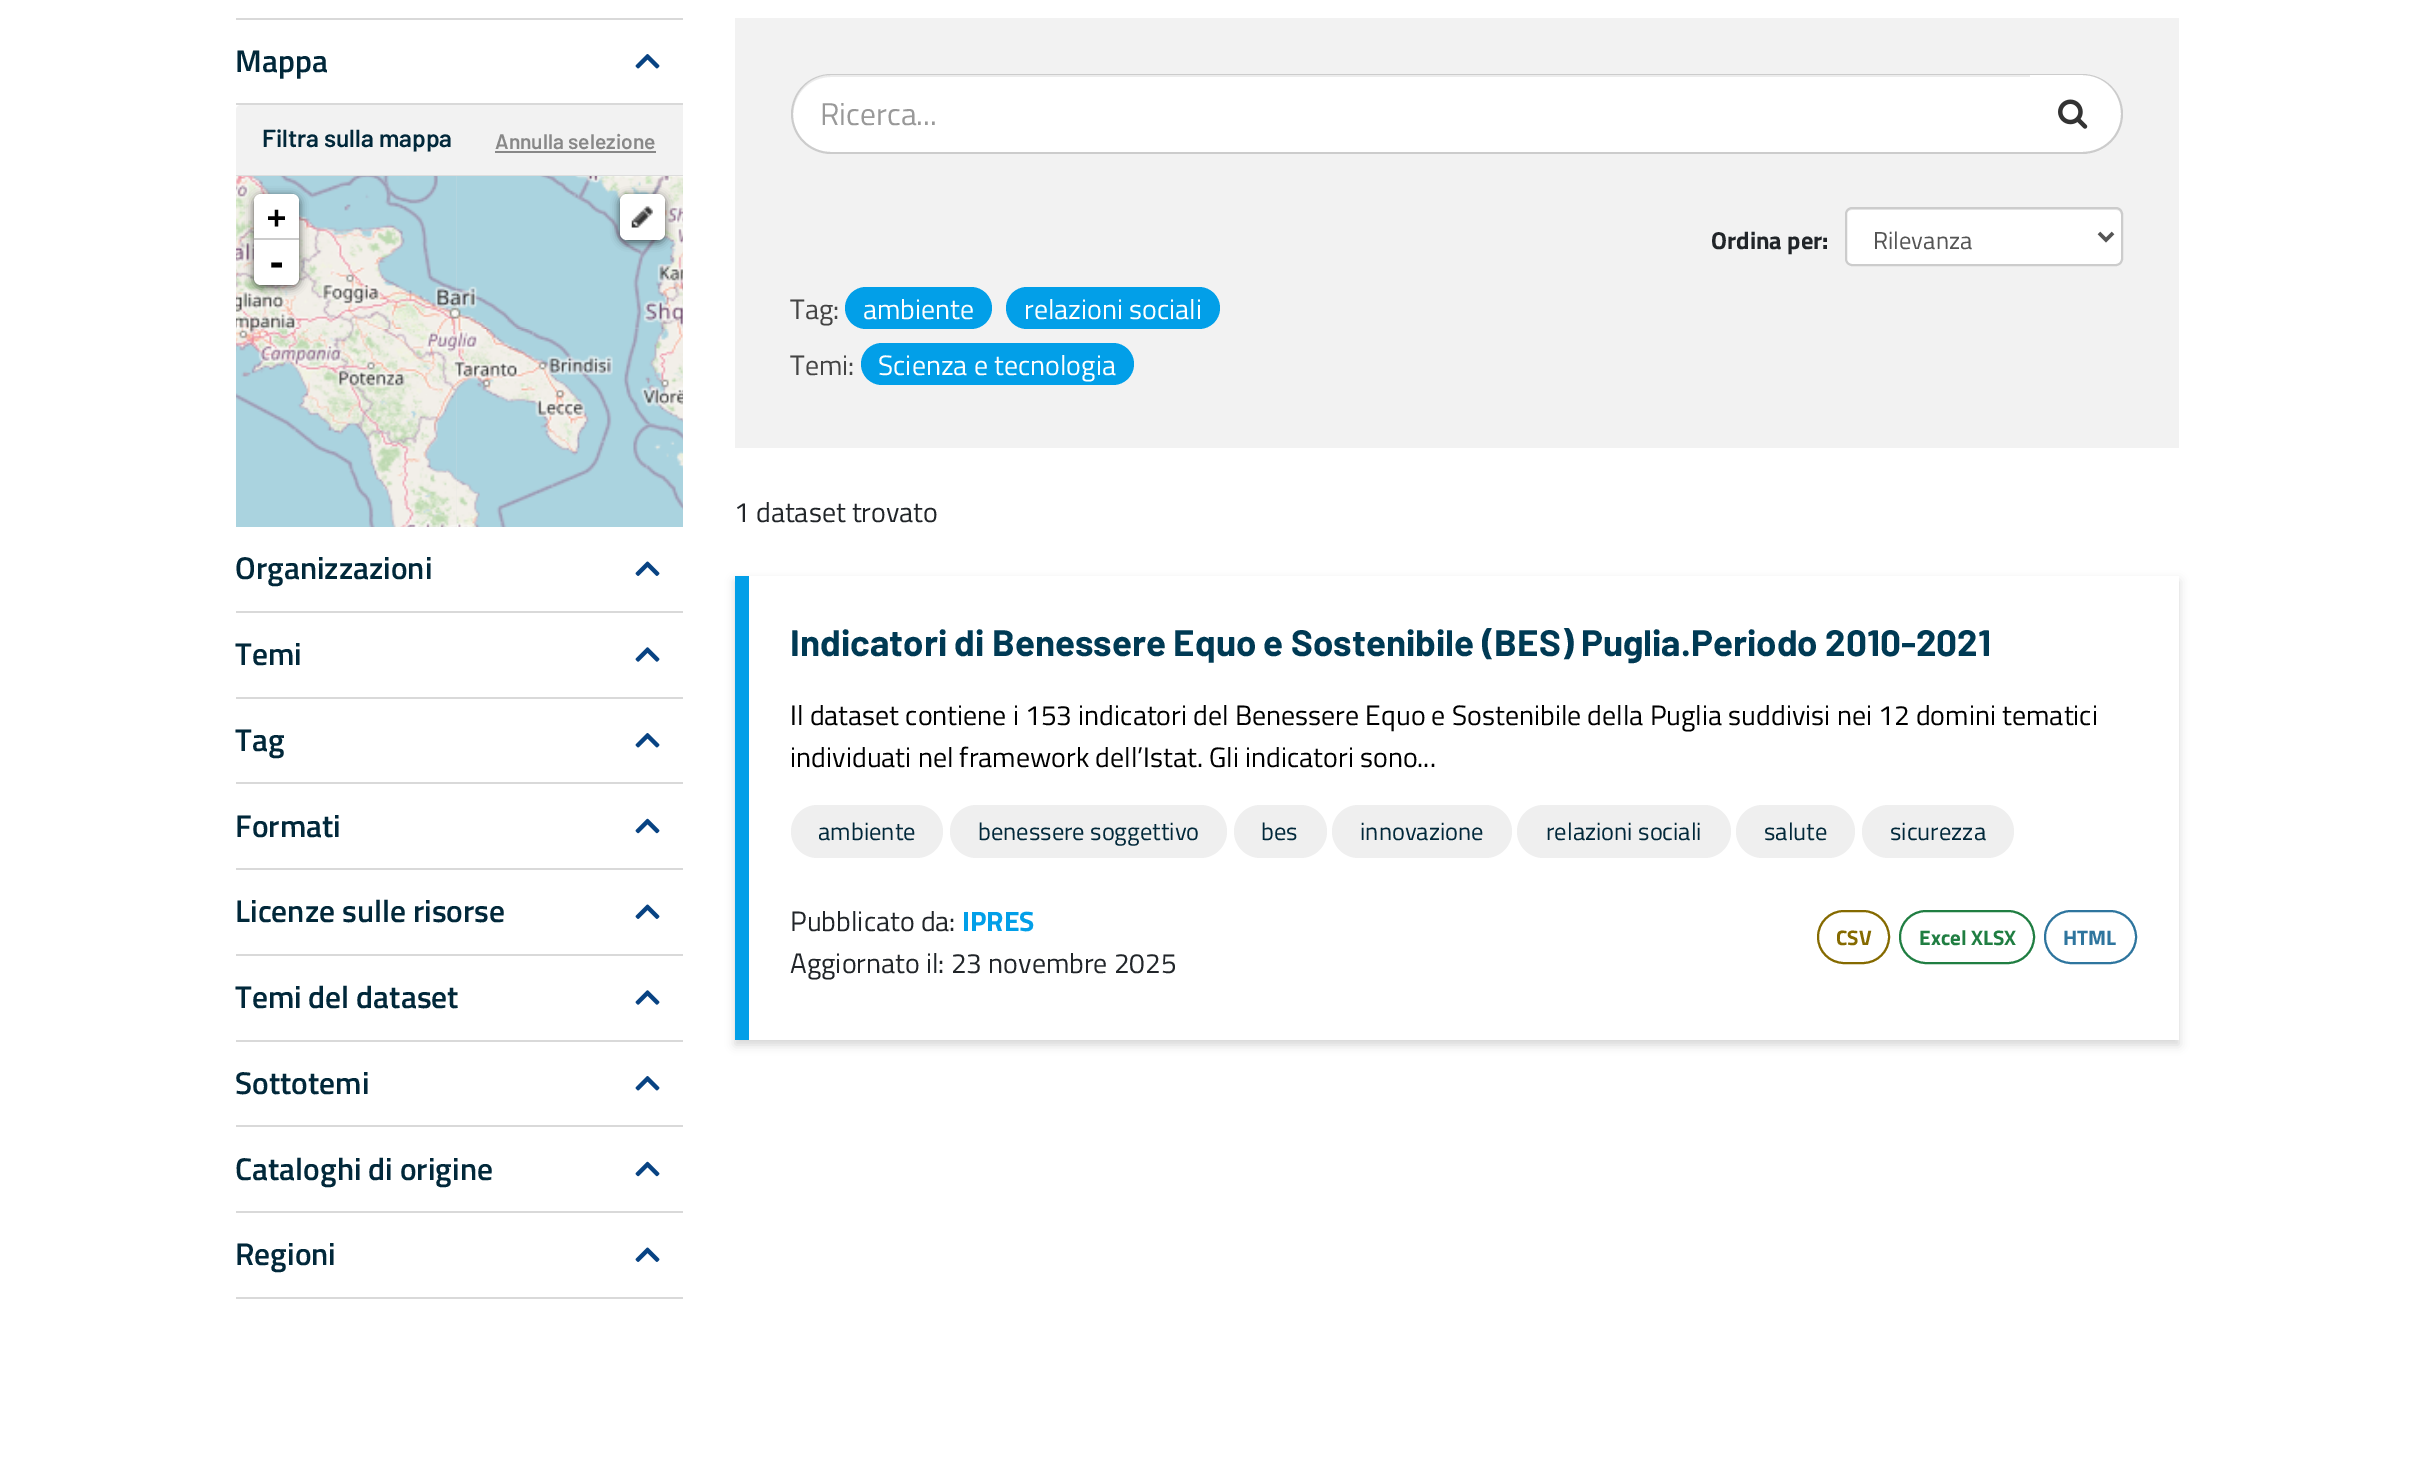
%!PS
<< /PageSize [2412 1473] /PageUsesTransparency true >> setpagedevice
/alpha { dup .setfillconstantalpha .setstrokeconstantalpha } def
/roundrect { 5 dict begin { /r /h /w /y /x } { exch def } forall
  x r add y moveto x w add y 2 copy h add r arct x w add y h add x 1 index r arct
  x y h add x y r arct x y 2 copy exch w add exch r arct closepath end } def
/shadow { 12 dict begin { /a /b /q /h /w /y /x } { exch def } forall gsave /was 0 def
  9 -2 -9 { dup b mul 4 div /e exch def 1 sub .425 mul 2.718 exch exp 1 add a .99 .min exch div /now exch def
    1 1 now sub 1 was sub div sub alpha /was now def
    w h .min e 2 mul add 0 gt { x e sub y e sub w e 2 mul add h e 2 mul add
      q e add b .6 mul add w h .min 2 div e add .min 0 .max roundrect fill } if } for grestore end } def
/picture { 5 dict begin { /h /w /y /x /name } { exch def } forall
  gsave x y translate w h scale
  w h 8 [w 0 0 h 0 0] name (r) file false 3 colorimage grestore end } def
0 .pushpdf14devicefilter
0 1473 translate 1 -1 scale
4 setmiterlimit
1 setgray
0 0 2412 1473 rectfill
0.851 setgray
236 18 447 2 rectfill
236 103 447 2 rectfill
/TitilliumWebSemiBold-SemiBold [31.5 0 0 -31.5 0 0] selectfont
0.004 0.157 0.227 setrgbcolor
235 72 moveto (Mappa) show
(img1.rgb) 635 54 25 15 picture
0.949 setgray
newpath 241 105 moveto 683 105 lineto 683 177 lineto 236 177 lineto 236 110 lineto 236 107 238 105 241 105 curveto closepath fill
0.867 setgray
236 175 447 2 rectfill
/Barlow-SemiBold [24.5 0 0 -24.5 0 0] selectfont
0.004 0.157 0.227 setrgbcolor
262 147 moveto (Filtra sulla mappa) show
/Barlow-SemiBold [21 0 0 -21 0 0] selectfont
0.533 setgray
495 149 moveto (Annulla selezione) show
495 151 161 2 rectfill
(img2.rgb) 236 176 221 153 picture
(img3.rgb) 456 176 227 153 picture
(img4.rgb) 236 329 221 198 picture
(img5.rgb) 456 329 227 198 picture
0 setgray
254 196 45 91 7 4.5 0.65 shadow
1 setgray
newpath 261 194 moveto 292 194 lineto 296 194 299 197 299 201 curveto 299 240 lineto 254 240 lineto 254 201 lineto 254 197 257 194 261 194 curveto closepath fill
0.8 setgray
254 238 45 2 rectfill
/DejaVuSansMono-Bold [31.5 0 0 -31.5 0 0] selectfont
0 setgray
267 228 moveto (+) show
1 setgray
newpath 254 240 moveto 299 240 lineto 299 278 lineto 299 282 296 285 292 285 curveto 261 285 lineto 257 285 254 282 254 278 curveto closepath fill
/DejaVuSansMono-Bold [35 0 0 -35 0 0] selectfont
0 setgray
266 275 moveto (-) show
620 196 45 46 7 4.5 0.65 shadow
1 setgray
620 194 45 46 7 roundrect fill
(img6.rgb) 631 206 22 22 picture
0.851 setgray
236 611 447 2 rectfill
/TitilliumWebSemiBold-SemiBold [31.5 0 0 -31.5 0 0] selectfont
0.004 0.157 0.227 setrgbcolor
235 579 moveto (Organizzazioni) show
(img7.rgb) 635 561 25 15 picture
0.851 setgray
236 697 447 2 rectfill
0.004 0.157 0.227 setrgbcolor
235 665 moveto (Temi) show
(img8.rgb) 635 647 25 15 picture
0.851 setgray
236 782 447 2 rectfill
0.004 0.157 0.227 setrgbcolor
235 751 moveto (Tag) show
(img1.rgb) 635 733 25 15 picture
0.851 setgray
236 868 447 2 rectfill
0.004 0.157 0.227 setrgbcolor
235 837 moveto (Formati) show
(img9.rgb) 635 818 25 16 picture
0.851 setgray
236 954 447 2 rectfill
0.004 0.157 0.227 setrgbcolor
235 922 moveto (Licenze sulle risorse) show
(img7.rgb) 635 904 25 15 picture
0.851 setgray
236 1040 447 2 rectfill
0.004 0.157 0.227 setrgbcolor
235 1008 moveto (Temi del dataset) show
(img8.rgb) 635 990 25 15 picture
0.851 setgray
236 1125 447 2 rectfill
0.004 0.157 0.227 setrgbcolor
235 1094 moveto (Sottotemi) show
(img1.rgb) 635 1076 25 15 picture
0.851 setgray
236 1211 447 2 rectfill
0.004 0.157 0.227 setrgbcolor
235 1180 moveto (Cataloghi di origine) show
(img9.rgb) 635 1161 25 16 picture
0.851 setgray
236 1297 447 2 rectfill
0.004 0.157 0.227 setrgbcolor
235 1265 moveto (Regioni) show
(img7.rgb) 635 1247 25 15 picture
0.949 setgray
735 18 1444 430 rectfill
1 setgray
newpath 831 74 moveto 2032 74 lineto 2032 154 lineto 831 154 lineto 809 154 791 136 791 114 curveto 791 92 809 74 831 74 curveto closepath fill
0.925 setgray
newpath 831 77 moveto 2032 77 lineto 2032 75 lineto 832 75 lineto 810 75 793 92 793 114 curveto 793 115 lineto 794 93 810 77 831 77 curveto closepath fill
0.8 setgray
newpath 831 74 moveto 2032 74 lineto 2032 154 lineto 831 154 lineto 809 154 791 136 791 114 curveto 791 92 809 74 831 74 curveto closepath 831 75 moveto 2032 75 lineto 2032 152 lineto 831 152 lineto 810 152 793 135 793 114 curveto 793 92 810 75 831 75 curveto closepath eofill
/TitilliumWeb-Regular [31.5 0 0 -31.5 0 0] selectfont
0.6 setgray
820 125 moveto (Ricerca...) show
1 setgray
newpath 2030 74 moveto 2083 74 lineto 2105 74 2123 92 2123 114 curveto 2123 136 2105 154 2083 154 curveto 2030 154 lineto closepath fill
0.8 setgray
newpath 2030 74 moveto 2082 74 lineto 2105 74 2123 92 2123 114 curveto 2123 136 2105 154 2082 154 curveto 2030 154 lineto closepath 2030 75 moveto 2082 75 lineto 2104 75 2121 92 2121 114 curveto 2121 135 2104 152 2082 152 curveto 2030 152 lineto closepath eofill
(img10.rgb) 2058 99 30 30 picture
/TitilliumWeb-Bold [24.5 0 0 -24.5 0 0] selectfont
0.129 0.145 0.161 setrgbcolor
1711 249 moveto (Ordina per:) show
1 setgray
1845 207 278 59 7 roundrect fill
0.925 setgray
newpath 1852 210 moveto 2116 210 lineto 2119 210 2121 212 2121 215 curveto 2121 213 lineto 2121 210 2119 208 2116 208 curveto 1851 208 lineto 1848 208 1846 210 1846 213 curveto 1846 215 lineto 1846 212 1849 210 1852 210 curveto closepath fill
0.8 setgray
2 setlinewidth
1846 208 276 57 6 roundrect stroke
0.333 setgray
3.5 setlinewidth
newpath 2099 233 moveto 2106 240 lineto 2113 233 lineto stroke
/TitilliumWeb-Regular [24.5 0 0 -24.5 0 0] selectfont
1873 249 moveto (Rilevanza) show
/TitilliumWeb-Regular [28 0 0 -28 0 0] selectfont
0.267 setgray
790 319 moveto (Tag:) show
0.008 0.624 0.91 setrgbcolor
845 287 147 42 21 roundrect fill
1 setgray
863 319 moveto (ambiente) show
0.008 0.624 0.91 setrgbcolor
1006 287 214 42 21 roundrect fill
1 setgray
1024 319 moveto (relazioni sociali) show
0.267 setgray
790 375 moveto (Temi:) show
0.008 0.624 0.91 setrgbcolor
861 343 273 42 21 roundrect fill
1 setgray
878 375 moveto (Scienza e tecnologia) show
0.129 0.145 0.161 setrgbcolor
734 522 moveto (1 dataset trovato) show
0 setgray
735 581 1444 464 0 5 0.16 shadow
1 setgray
749 576 1430 464 rectfill
0.008 0.624 0.91 setrgbcolor
735 576 14 464 rectfill
/Barlow-Bold [36.75 0 0 -36.75 0 0] selectfont
0 0.227 0.329 setrgbcolor
790 656 moveto (Indicatori di Benessere Equo e Sostenibile \(BES\) Puglia.Periodo 2010-2021) show
/TitilliumWeb-Regular [28 0 0 -28 0 0] selectfont
0 setgray
790 725 moveto (Il dataset contiene i 153 indicatori del Benessere Equo e Sostenibile della Puglia suddivisi nei 12 domini tematici) show
790 767 moveto (individuati nel framework dell’Istat. Gli indicatori sono...) show
0.937 setgray
791 805 152 53 26.5 roundrect fill
/TitilliumWeb-Regular [24.5 0 0 -24.5 0 0] selectfont
0.004 0.157 0.227 setrgbcolor
818 840 moveto (ambiente) show
0.937 setgray
950 805 277 53 26.5 roundrect fill
0.004 0.157 0.227 setrgbcolor
978 840 moveto (benessere soggettivo) show
0.937 setgray
1234 805 93 53 26.5 roundrect fill
0.004 0.157 0.227 setrgbcolor
1261 840 moveto (bes) show
0.937 setgray
1332 805 180 53 26.5 roundrect fill
0.004 0.157 0.227 setrgbcolor
1360 840 moveto (innovazione) show
0.937 setgray
1517 805 214 53 26.5 roundrect fill
0.004 0.157 0.227 setrgbcolor
1546 840 moveto (relazioni sociali) show
0.937 setgray
1736 805 119 53 26.5 roundrect fill
0.004 0.157 0.227 setrgbcolor
1764 840 moveto (salute) show
0.937 setgray
1862 805 152 53 26.5 roundrect fill
0.004 0.157 0.227 setrgbcolor
1890 840 moveto (sicurezza) show
/TitilliumWeb-Regular [28 0 0 -28 0 0] selectfont
0.129 0.145 0.161 setrgbcolor
790 931 moveto (Pubblicato da:) show
/TitilliumWeb-Bold [28 0 0 -28 0 0] selectfont
0.008 0.624 0.91 setrgbcolor
962 931 moveto (IPRES) show
/TitilliumWeb-Regular [28 0 0 -28 0 0] selectfont
0.129 0.145 0.161 setrgbcolor
790 973 moveto (Aggiornato il: 23 novembre 2025) show
0.522 0.416 0 setrgbcolor
2 setlinewidth
1818 911 71 52 26 roundrect stroke
/TitilliumWeb-Bold [21 0 0 -21 0 0] selectfont
1836 945 moveto (CSV) show
0.125 0.494 0.259 setrgbcolor
1900 911 134 52 26 roundrect stroke
1919 945 moveto (Excel XLSX) show
0.18 0.459 0.62 setrgbcolor
2045 911 91 52 26 roundrect stroke
2063 945 moveto (HTML) show
.poppdf14devicefilter showpage
